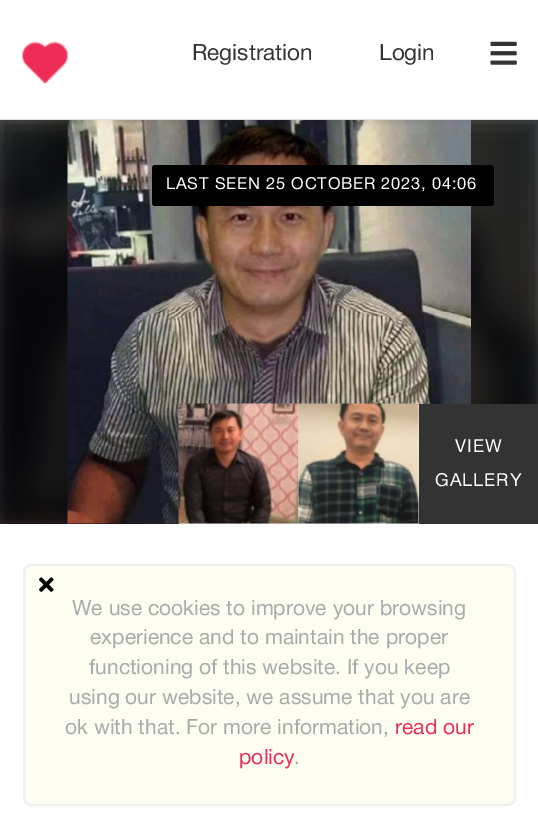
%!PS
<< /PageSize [538 827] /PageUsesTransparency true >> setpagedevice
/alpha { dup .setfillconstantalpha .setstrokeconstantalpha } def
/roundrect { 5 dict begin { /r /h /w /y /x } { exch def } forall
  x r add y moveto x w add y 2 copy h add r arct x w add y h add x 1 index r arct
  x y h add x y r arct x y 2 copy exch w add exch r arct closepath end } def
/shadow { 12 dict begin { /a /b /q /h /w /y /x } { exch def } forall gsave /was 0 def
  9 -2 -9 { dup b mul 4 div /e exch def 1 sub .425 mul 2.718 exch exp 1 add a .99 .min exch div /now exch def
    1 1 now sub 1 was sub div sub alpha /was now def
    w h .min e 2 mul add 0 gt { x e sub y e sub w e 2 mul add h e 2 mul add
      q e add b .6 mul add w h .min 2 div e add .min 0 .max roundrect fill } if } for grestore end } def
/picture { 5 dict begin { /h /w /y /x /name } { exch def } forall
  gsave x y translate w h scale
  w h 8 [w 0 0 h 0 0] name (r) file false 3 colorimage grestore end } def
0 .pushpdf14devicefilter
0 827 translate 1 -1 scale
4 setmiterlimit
0.933 0.933 0.957 setrgbcolor
0 0 538 827 rectfill
1 setgray
0 120 538 707 rectfill
(img3.rgb) 0 120 538 404 picture
0.937 setgray
2 setlinewidth
newpath 29 570 moveto 109 570 lineto 109 634 lineto 29 634 lineto 26 634 24 632 24 629 curveto 24 575 lineto 24 572 26 570 29 570 curveto closepath stroke
gsave
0 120 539 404 rectclip
0 setgray
-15 105 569 434 0 15 0.75 shadow
grestore
(img4.rgb) 67 120 404 404 picture
0.204 0.204 0.235 setrgbcolor
0 3 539 119 0 3 0.1 shadow
1 setgray
0 0 538 119 rectfill
(img1.rgb) 22 41 46 44 picture
/HelveticaNeue-Regular [22.5 0 0 -22.5 0 0] selectfont
0.2 setgray
192 60 moveto (Registration) show
379 60 moveto (Login) show
(img2.rgb) 490 41 27 24 picture
0 setgray
152 165 342 41 3 roundrect fill
/HelveticaNeue-Regular [16.5 0 0 -16.5 0 0] selectfont
1 setgray
166 189 moveto 0.8 0 (LAST SEEN 25 OCTOBER 2023, 04:06) ashow
0.933 0.933 0.957 setrgbcolor
179 404 240 120 rectfill
(img5.rgb) 178 403 121 121 picture
(img6.rgb) 298 403 121 121 picture
0.2 setgray
419 404 119 120 rectfill
/HelveticaNeue-Regular [18 0 0 -18 0 0] selectfont
1 setgray
455 452 moveto 1 0 (VIEW) ashow
435 486 moveto 1 0 (GALLERY) ashow
0.992 0.992 0.945 setrgbcolor
24 565 491 240 7 roundrect gsave fill grestore
0.937 setgray
stroke
(img7.rgb) 39 577 15 15 picture
/HelveticaNeue-Regular [21 0 0 -21 0 0] selectfont
0.667 setgray
72 615 moveto (We use cookies to improve your browsing) show
90 644 moveto (experience and to maintain the proper) show
89 674 moveto (functioning of this website. If you keep) show
69 704 moveto (using our website, we assume that you are) show
65 734 moveto (ok with that. For more information,) show
0.933 0.173 0.333 setrgbcolor
395 734 moveto (read our) show
239 764 moveto (policy) show
0.667 setgray
294 764 moveto (.) show
.poppdf14devicefilter showpage
